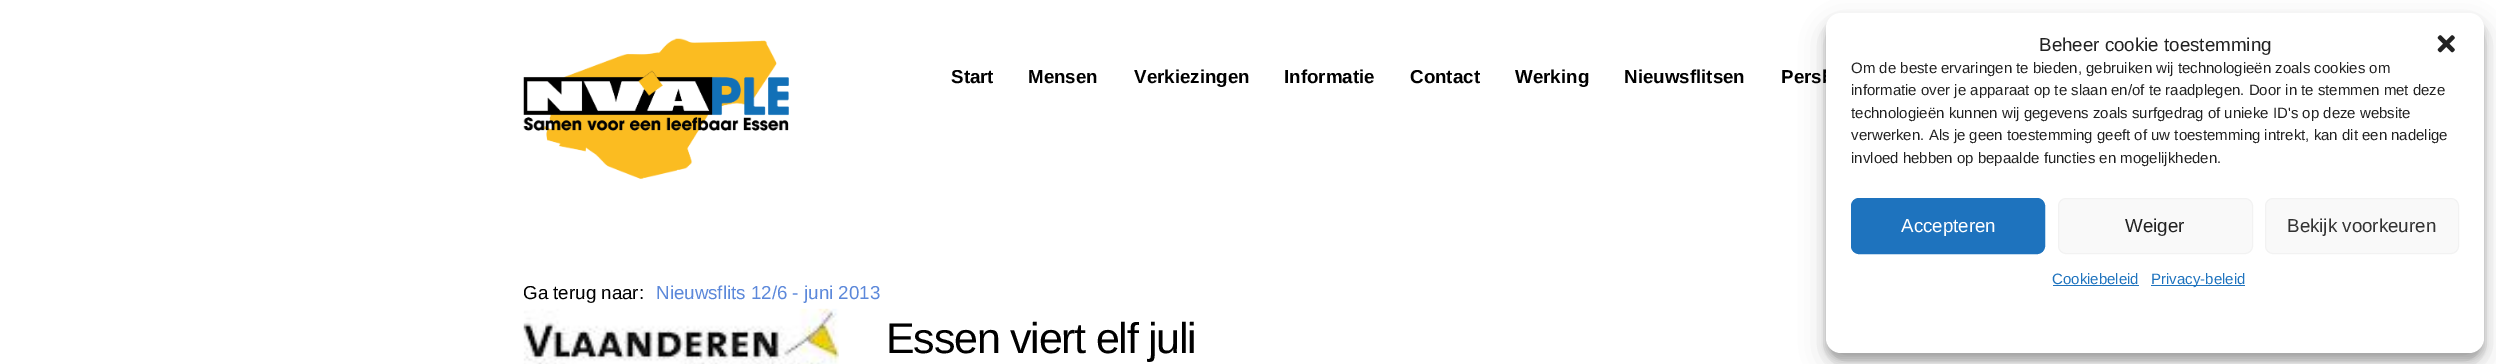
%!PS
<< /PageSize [2496 364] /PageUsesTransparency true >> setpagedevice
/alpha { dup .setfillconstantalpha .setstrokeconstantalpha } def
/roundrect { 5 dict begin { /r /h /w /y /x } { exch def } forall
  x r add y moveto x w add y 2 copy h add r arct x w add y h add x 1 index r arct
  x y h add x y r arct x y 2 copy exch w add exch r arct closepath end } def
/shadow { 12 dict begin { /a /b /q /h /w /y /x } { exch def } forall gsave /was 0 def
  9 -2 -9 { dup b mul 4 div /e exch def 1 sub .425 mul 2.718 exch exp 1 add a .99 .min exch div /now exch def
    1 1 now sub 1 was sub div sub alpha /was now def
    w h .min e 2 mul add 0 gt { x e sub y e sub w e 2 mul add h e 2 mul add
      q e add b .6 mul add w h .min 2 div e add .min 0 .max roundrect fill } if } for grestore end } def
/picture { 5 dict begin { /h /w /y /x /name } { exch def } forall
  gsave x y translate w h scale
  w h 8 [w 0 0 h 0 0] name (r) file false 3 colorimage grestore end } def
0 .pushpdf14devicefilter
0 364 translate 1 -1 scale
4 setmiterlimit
1 setgray
0 0 2496 364 rectfill
(img1.rgb) 523 38 266 141 picture
/LiberationSans-Bold [18.75 0 0 -18.75 0 0] selectfont
0 setgray
951 83 moveto (Start) show
1028 83 moveto (Mensen) show
1134 83 moveto (Verkiezingen) show
1284 83 moveto (Informatie) show
1410 83 moveto (Contact) show
1515 83 moveto (Werking) show
1624 83 moveto (Nieuwsflitsen) show
1781 83 moveto (Persb) show
/LiberationSans-Regular [18.75 0 0 -18.75 0 0] selectfont
523 299 moveto (Ga terug naar:) show
0.361 0.533 0.855 setrgbcolor
656 299 moveto (Nieuwsflits 12/6 - juni 2013) show
(img2.rgb) 523 308 316 56 picture
/LiberationSans-Regular [43 0 0 -43 0 0] selectfont
0 setgray
886 353 moveto -1.25 0 (Essen viert elf juli) ashow
1826 20 658 340 15 4 0.23 shadow
1826 25 658 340 15 12.5 0.19 shadow
1 setgray
1826 13 658 340 15 roundrect fill
/LiberationSans-Regular [18.75 0 0 -18.75 0 0] selectfont
0.133 setgray
2039 51 moveto (Beheer cookie toestemming) show
(img3.rgb) 2437 35 18 18 picture
/LiberationSans-Regular [15 0 0 -15 0 0] selectfont
1851 73 moveto (Om de beste ervaringen te bieden, gebruiken wij technologieën zoals cookies om) show
1851 95 moveto (informatie over je apparaat op te slaan en/of te raadplegen. Door in te stemmen met deze) show
1851 118 moveto (technologieën kunnen wij gegevens zoals surfgedrag of unieke ID's op deze website) show
1851 140 moveto (verwerken. Als je geen toestemming geeft of uw toestemming intrekt, kan dit een nadelige) show
1851 163 moveto (invloed hebben op bepaalde functies en mogelijkheden.) show
0.118 0.451 0.745 setrgbcolor
1851.5 198.5 193 55 7.5 roundrect gsave fill grestore
stroke
/LiberationSans-Regular [18.75 0 0 -18.75 0 0] selectfont
1 setgray
1901 232 moveto (Accepteren) show
0.976 setgray
2058.5 198.5 194 55 7.5 roundrect gsave fill grestore
0.949 setgray
stroke
0.133 setgray
2125 232 moveto (Weiger) show
0.976 setgray
2265.5 198.5 193 55 7.5 roundrect gsave fill grestore
0.949 setgray
stroke
0.2 setgray
2287 232 moveto (Bekijk voorkeuren) show
/LiberationSans-Regular [15 0 0 -15 0 0] selectfont
0.118 0.451 0.745 setrgbcolor
2052 284 moveto (Cookiebeleid) show
2053 285 86 1 rectfill
2151 285 94 1 rectfill
2151 284 moveto (Privacy-beleid) show
.poppdf14devicefilter showpage
